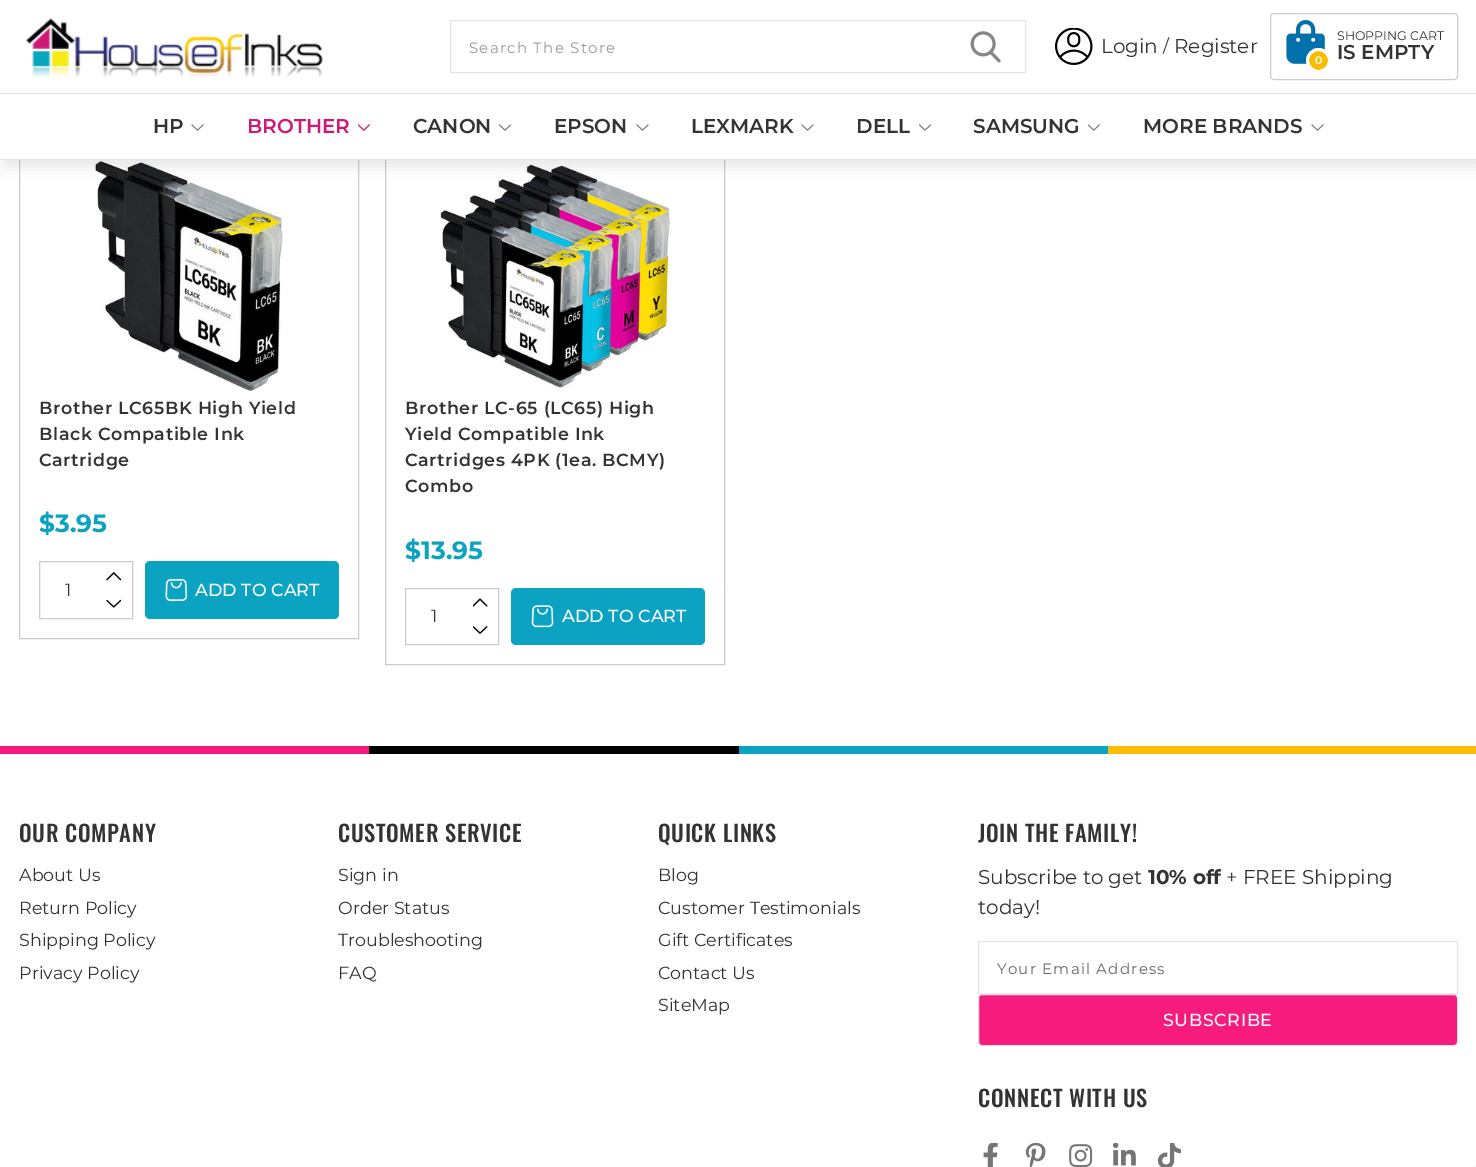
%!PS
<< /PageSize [1476 1167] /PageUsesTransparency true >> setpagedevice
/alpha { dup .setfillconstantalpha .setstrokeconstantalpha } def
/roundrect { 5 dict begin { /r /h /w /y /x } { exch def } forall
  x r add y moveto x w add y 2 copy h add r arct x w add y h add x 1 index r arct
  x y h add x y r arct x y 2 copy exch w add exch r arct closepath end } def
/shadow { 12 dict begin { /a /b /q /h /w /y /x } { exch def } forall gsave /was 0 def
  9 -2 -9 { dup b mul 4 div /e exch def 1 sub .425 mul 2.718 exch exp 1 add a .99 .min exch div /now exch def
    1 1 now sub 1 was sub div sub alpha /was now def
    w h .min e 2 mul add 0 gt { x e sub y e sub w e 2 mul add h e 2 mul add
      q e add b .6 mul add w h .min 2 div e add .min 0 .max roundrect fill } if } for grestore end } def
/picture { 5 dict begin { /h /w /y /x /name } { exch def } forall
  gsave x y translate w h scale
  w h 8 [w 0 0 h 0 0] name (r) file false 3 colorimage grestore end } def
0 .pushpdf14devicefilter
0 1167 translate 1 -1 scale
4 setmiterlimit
1 setgray
0 0 1476 1167 rectfill
0.8 setgray
19.5 138.5 339 500 rectstroke
(img9.rgb) 94 160 189 234 picture
385.5 138.5 339 526 rectstroke
(img13.rgb) 439 164 234 225 picture
0 setgray
4 6 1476 160 0 7 0.1 shadow
1 setgray
0 0 1476 159 rectfill
(img1.rgb) 26 18 297 59 picture
0.898 setgray
450.5 20.5 575 52 rectstroke
/Montserrat-Regular [15 0 0 -15 0 0] selectfont
0.6 setgray
469 53 moveto 1.25 0 (Search The Store) ashow
(img2.rgb) 970 31 31 32 picture
(img3.rgb) 1055 28 38 37 picture
/Montserrat-Regular [20 0 0 -20 0 0] selectfont
0.2 setgray
1101 53 moveto (Login) show
/Montserrat-Regular [17.5 0 0 -17.5 0 0] selectfont
1163 52 moveto (/) show
/Montserrat-Regular [20 0 0 -20 0 0] selectfont
1174 53 moveto (Register) show
0.8 setgray
1270.5 13.5 187 66 3.5 roundrect stroke
(img4.rgb) 1286 20 39 44 picture
0.992 0.737 0 setrgbcolor
newpath 1318.5 60.5 11 0 360 arc closepath gsave fill grestore
1 setgray
3 setlinewidth
stroke
/Montserrat-SemiBold [11 0 0 -11 0 0] selectfont
1315 64 moveto (0) show
/Montserrat-Regular [12.5 0 0 -12.5 0 0] selectfont
0.2 setgray
1337 40 moveto (SHOPPING CART) show
/Montserrat-SemiBold [20 0 0 -20 0 0] selectfont
1337 59 moveto (IS EMPTY) show
0.894 setgray
0 93 1476 1 rectfill
0 159 1476 1 rectfill
0.2 setgray
153 133 moveto (HP) show
(img5.rgb) 191 124 13 7 picture
0.804 0.098 0.467 setrgbcolor
247 133 moveto (BROTHER) show
(img6.rgb) 358 124 12 7 picture
0.2 setgray
413 133 moveto (CANON) show
(img7.rgb) 499 124 12 7 picture
554 133 moveto (EPSON) show
(img5.rgb) 636 124 13 7 picture
691 133 moveto (LEXMARK) show
(img5.rgb) 801 124 13 7 picture
856 133 moveto (DELL) show
(img7.rgb) 919 124 12 7 picture
973 133 moveto (SAMSUNG) show
(img8.rgb) 1088 124 12 7 picture
1143 133 moveto (MORE BRANDS) show
(img5.rgb) 1311 124 13 7 picture
/Montserrat-SemiBold [17.5 0 0 -17.5 0 0] selectfont
39 414 moveto 0.6 0 (Brother LC65BK High Yield) ashow
39 440 moveto 0.6 0 (Black Compatible Ink) ashow
39 466 moveto 0.6 0 (Cartridge) ashow
/Montserrat-Bold [25 0 0 -25 0 0] selectfont
0.047 0.639 0.761 setrgbcolor
39 532 moveto ($3.95) show
0.8 setgray
1 setlinewidth
39.5 561.5 93 57 rectstroke
/Montserrat-Regular [17.5 0 0 -17.5 0 0] selectfont
0.2 setgray
65 596 moveto (1) show
(img10.rgb) 106 572 15 9 picture
(img11.rgb) 106 599 15 9 picture
0.047 0.639 0.761 setrgbcolor
145 561 194 58 5 roundrect fill
(img12.rgb) 165 579 22 22 picture
/Montserrat-Medium [17.5 0 0 -17.5 0 0] selectfont
1 setgray
195 596 moveto (ADD TO CART) show
/Montserrat-SemiBold [17.5 0 0 -17.5 0 0] selectfont
0.2 setgray
405 414 moveto 0.6 0 (Brother LC-65 \(LC65\) High) ashow
405 440 moveto 0.6 0 (Yield Compatible Ink) ashow
405 466 moveto 0.6 0 (Cartridges 4PK \(1ea. BCMY\)) ashow
405 492 moveto 0.6 0 (Combo) ashow
/Montserrat-Bold [25 0 0 -25 0 0] selectfont
0.047 0.639 0.761 setrgbcolor
405 559 moveto ($13.95) show
0.8 setgray
405.5 588.5 93 56 rectstroke
/Montserrat-Regular [17.5 0 0 -17.5 0 0] selectfont
0.2 setgray
431 622 moveto (1) show
(img14.rgb) 473 598 15 9 picture
(img15.rgb) 473 626 15 8 picture
0.047 0.639 0.761 setrgbcolor
511 588 194 57 5 roundrect fill
(img16.rgb) 531 605 23 23 picture
/Montserrat-Medium [17.5 0 0 -17.5 0 0] selectfont
1 setgray
562 622 moveto (ADD TO CART) show
0.969 0.106 0.49 setrgbcolor
0 746 369 8 rectfill
0 setgray
369 746 370 8 rectfill
0.047 0.639 0.761 setrgbcolor
739 746 369 8 rectfill
0.992 0.737 0 setrgbcolor
1108 746 368 8 rectfill
/Oswald-Medium [22.5 0 0 -22.5 0 0] selectfont
0.2 setgray
19 842 moveto 0.6 0 (OUR COMPANY) ashow
/Montserrat-Regular [17.5 0 0 -17.5 0 0] selectfont
19 881 moveto (About Us) show
19 914 moveto (Return Policy) show
19 946 moveto (Shipping Policy) show
19 979 moveto (Privacy Policy) show
/Oswald-Medium [22.5 0 0 -22.5 0 0] selectfont
338 842 moveto 0.6 0 (CUSTOMER SERVICE) ashow
/Montserrat-Regular [17.5 0 0 -17.5 0 0] selectfont
338 881 moveto (Sign in) show
338 914 moveto (Order Status) show
338 946 moveto (Troubleshooting) show
338 979 moveto (FAQ) show
/Oswald-Medium [22.5 0 0 -22.5 0 0] selectfont
658 842 moveto 0.6 0 (QUICK LINKS) ashow
/Montserrat-Regular [17.5 0 0 -17.5 0 0] selectfont
658 881 moveto (Blog) show
658 914 moveto (Customer Testimonials) show
658 946 moveto (Gift Certificates) show
658 979 moveto (Contact Us) show
658 1011 moveto (SiteMap) show
/Oswald-Medium [22.5 0 0 -22.5 0 0] selectfont
978 842 moveto 0.6 0 (JOIN THE FAMILY!) ashow
/Montserrat-Regular [20 0 0 -20 0 0] selectfont
978 884 moveto (Subscribe to get) show
/Montserrat-Bold [20 0 0 -20 0 0] selectfont
1148 884 moveto (10% off) show
/Montserrat-Regular [20 0 0 -20 0 0] selectfont
1226 884 moveto (+ FREE Shipping) show
978 914 moveto (today!) show
0.898 setgray
978.5 941.5 479 52 rectstroke
/Montserrat-Regular [15 0 0 -15 0 0] selectfont
0.4 setgray
997 974 moveto 1.25 0 (Your Email Address) ashow
0.969 0.106 0.49 setrgbcolor
978.5 994.5 479 51 3.5 roundrect gsave fill grestore
0.898 setgray
stroke
/Montserrat-Medium [17.5 0 0 -17.5 0 0] selectfont
1 setgray
1163 1026 moveto 0.6 0 (SUBSCRIBE) ashow
/Oswald-Medium [22.5 0 0 -22.5 0 0] selectfont
0.2 setgray
978 1107 moveto 0.6 0 (CONNECT WITH US) ashow
(img17.rgb) 983 1143 15 24 picture
(img18.rgb) 1025 1143 21 24 picture
(img19.rgb) 1069 1144 24 23 picture
(img20.rgb) 1112 1143 24 23 picture
(img21.rgb) 1157 1143 24 24 picture
0.961 setgray
1474 1165 2 2 rectfill
.poppdf14devicefilter showpage
